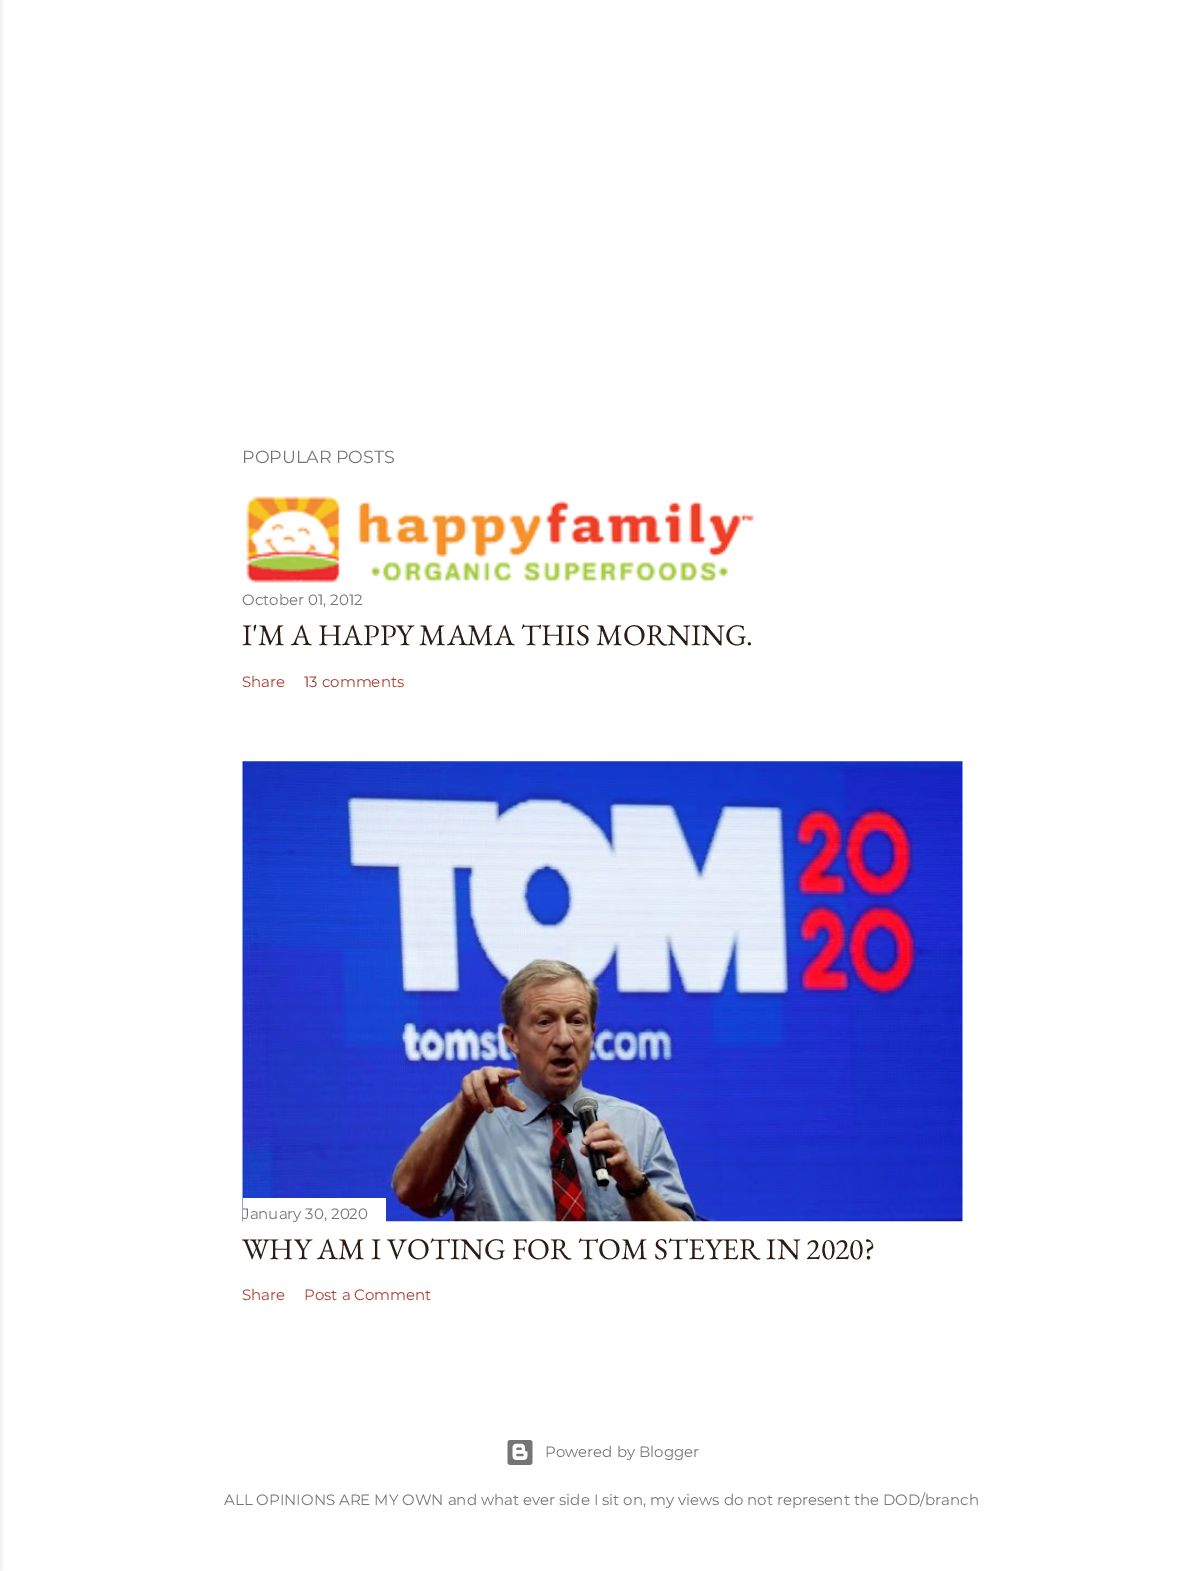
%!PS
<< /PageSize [1203 1571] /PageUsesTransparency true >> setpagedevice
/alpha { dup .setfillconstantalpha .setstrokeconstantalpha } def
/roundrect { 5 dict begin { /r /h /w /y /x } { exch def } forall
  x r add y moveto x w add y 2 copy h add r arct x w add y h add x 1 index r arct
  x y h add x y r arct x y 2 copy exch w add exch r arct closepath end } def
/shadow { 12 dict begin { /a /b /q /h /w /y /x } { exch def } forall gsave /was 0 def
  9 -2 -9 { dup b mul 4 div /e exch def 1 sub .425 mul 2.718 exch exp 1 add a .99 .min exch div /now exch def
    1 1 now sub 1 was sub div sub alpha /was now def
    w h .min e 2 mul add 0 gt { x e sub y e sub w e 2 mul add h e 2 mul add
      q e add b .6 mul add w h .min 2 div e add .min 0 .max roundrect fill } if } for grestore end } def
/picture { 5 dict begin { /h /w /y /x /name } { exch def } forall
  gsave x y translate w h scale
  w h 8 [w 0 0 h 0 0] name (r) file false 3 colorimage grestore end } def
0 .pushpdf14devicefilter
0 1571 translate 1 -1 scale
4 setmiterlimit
1 setgray
0 0 1203 1571 rectfill
0 setgray
-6 0 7 1571 0 2 0.1 shadow
/Montserrat-Regular [17.5 0 0 -17.5 0 0] selectfont
0.459 setgray
242 463 moveto (POPULAR POSTS) show
(img1.rgb) 246 496 508 87 picture
/Montserrat-Regular [15 0 0 -15 0 0] selectfont
242 605 moveto (October 01, 2012) show
/EBGaramond-Regular [30 0 0 -30 0 0] selectfont
0.173 0.114 0.078 setrgbcolor
242 645 moveto (I'M A HAPPY MAMA THIS MORNING.) show
/Montserrat-Regular [15 0 0 -15 0 0] selectfont
0.663 0.243 0.2 setrgbcolor
242 687 moveto (Share) show
304 687 moveto (13 comments) show
(img2.rgb) 242 761 721 461 picture
1 setgray
243 1198 143 24 rectfill
0.459 setgray
242 1219 moveto (January 30, 2020) show
/EBGaramond-Regular [30 0 0 -30 0 0] selectfont
0.173 0.114 0.078 setrgbcolor
242 1259 moveto (WHY AM I VOTING FOR TOM STEYER IN 2020?) show
/Montserrat-Regular [15 0 0 -15 0 0] selectfont
0.663 0.243 0.2 setrgbcolor
242 1300 moveto (Share) show
304 1300 moveto (Post a Comment) show
(img3.rgb) 507 1440 26 25 picture
0.459 setgray
545 1457 moveto (Powered by Blogger) show
224 1505 moveto (ALL OPINIONS ARE MY OWN and what ever side I sit on, my views do not represent the DOD/branch) show
.poppdf14devicefilter showpage
